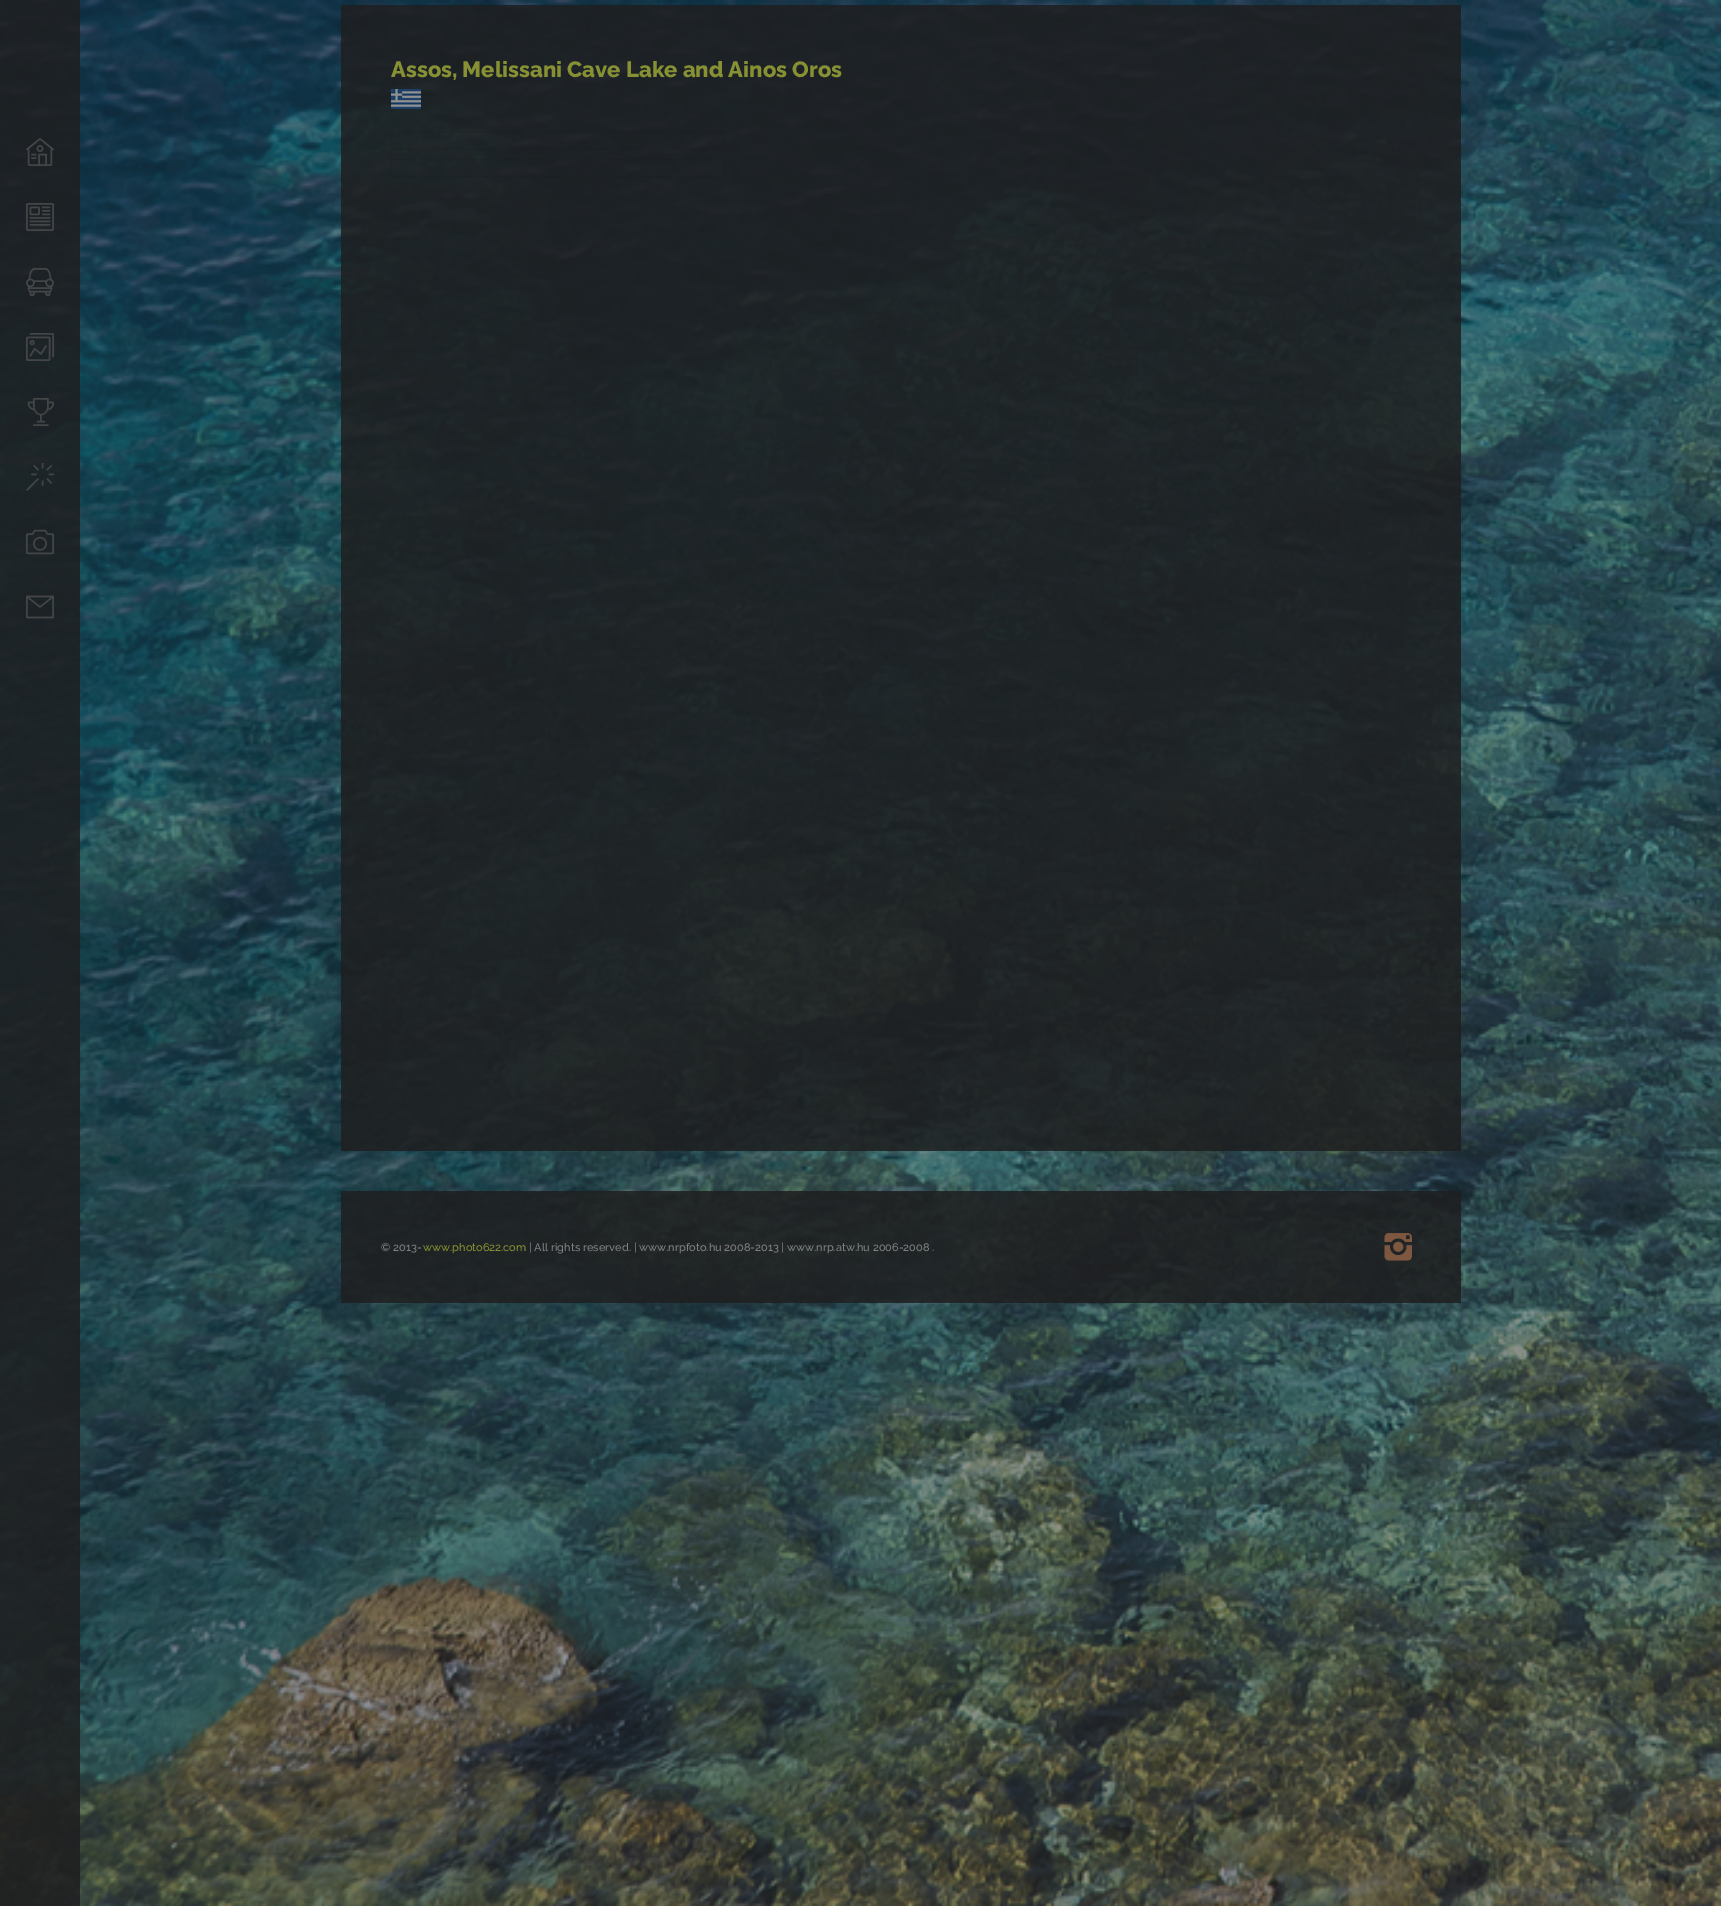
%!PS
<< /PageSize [1721 1906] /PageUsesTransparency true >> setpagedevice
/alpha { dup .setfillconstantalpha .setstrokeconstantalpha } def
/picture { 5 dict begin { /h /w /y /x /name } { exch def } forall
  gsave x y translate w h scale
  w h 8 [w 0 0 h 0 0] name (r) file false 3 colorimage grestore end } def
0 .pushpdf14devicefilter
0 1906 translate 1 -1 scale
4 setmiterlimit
1 setgray
0 0 1721 1906 rectfill
(img1.rgb) 0 0 1721 1906 picture
0.85 alpha
0.118 0.118 0.122 setrgbcolor
0 0 80 1906 rectfill
1 alpha
(img2.rgb) 26 138 28 28 picture
(img3.rgb) 26 203 28 28 picture
(img4.rgb) 26 268 28 28 picture
(img5.rgb) 26 333 28 28 picture
(img6.rgb) 27 398 27 28 picture
(img7.rgb) 26 463 28 28 picture
(img8.rgb) 26 529 28 26 picture
(img9.rgb) 26 595 28 24 picture
0.85 alpha
341 5 1120 1146 rectfill
/Raleway-ExtraBold [22 0 0 -22 0 0] selectfont
1 alpha
0.529 0.569 0.2 setrgbcolor
391 77 moveto (Assos, Melissani Cave Lake and Ainos Oros) show
(img10.rgb) 391 89 30 20 picture
0.1 alpha
0.059 setgray
391.5 131.5 332 17 rectstroke
391.5 159.5 332 17 rectstroke
0.85 alpha
0.118 0.118 0.122 setrgbcolor
341 1191 1120 112 rectfill
/Raleway-Medium [11 0 0 -11 0 0] selectfont
1 alpha
0.506 setgray
381 1251 moveto (© 2013-) show
0.529 0.569 0.2 setrgbcolor
423 1251 moveto (www.photo622.com) show
0.506 setgray
529 1251 moveto (| All rights reserved. | www.nrpfoto.hu 2008-2013 | www.nrp.atw.hu 2006-2008 .) show
(img11.rgb) 1384 1233 28 28 picture
.poppdf14devicefilter showpage
